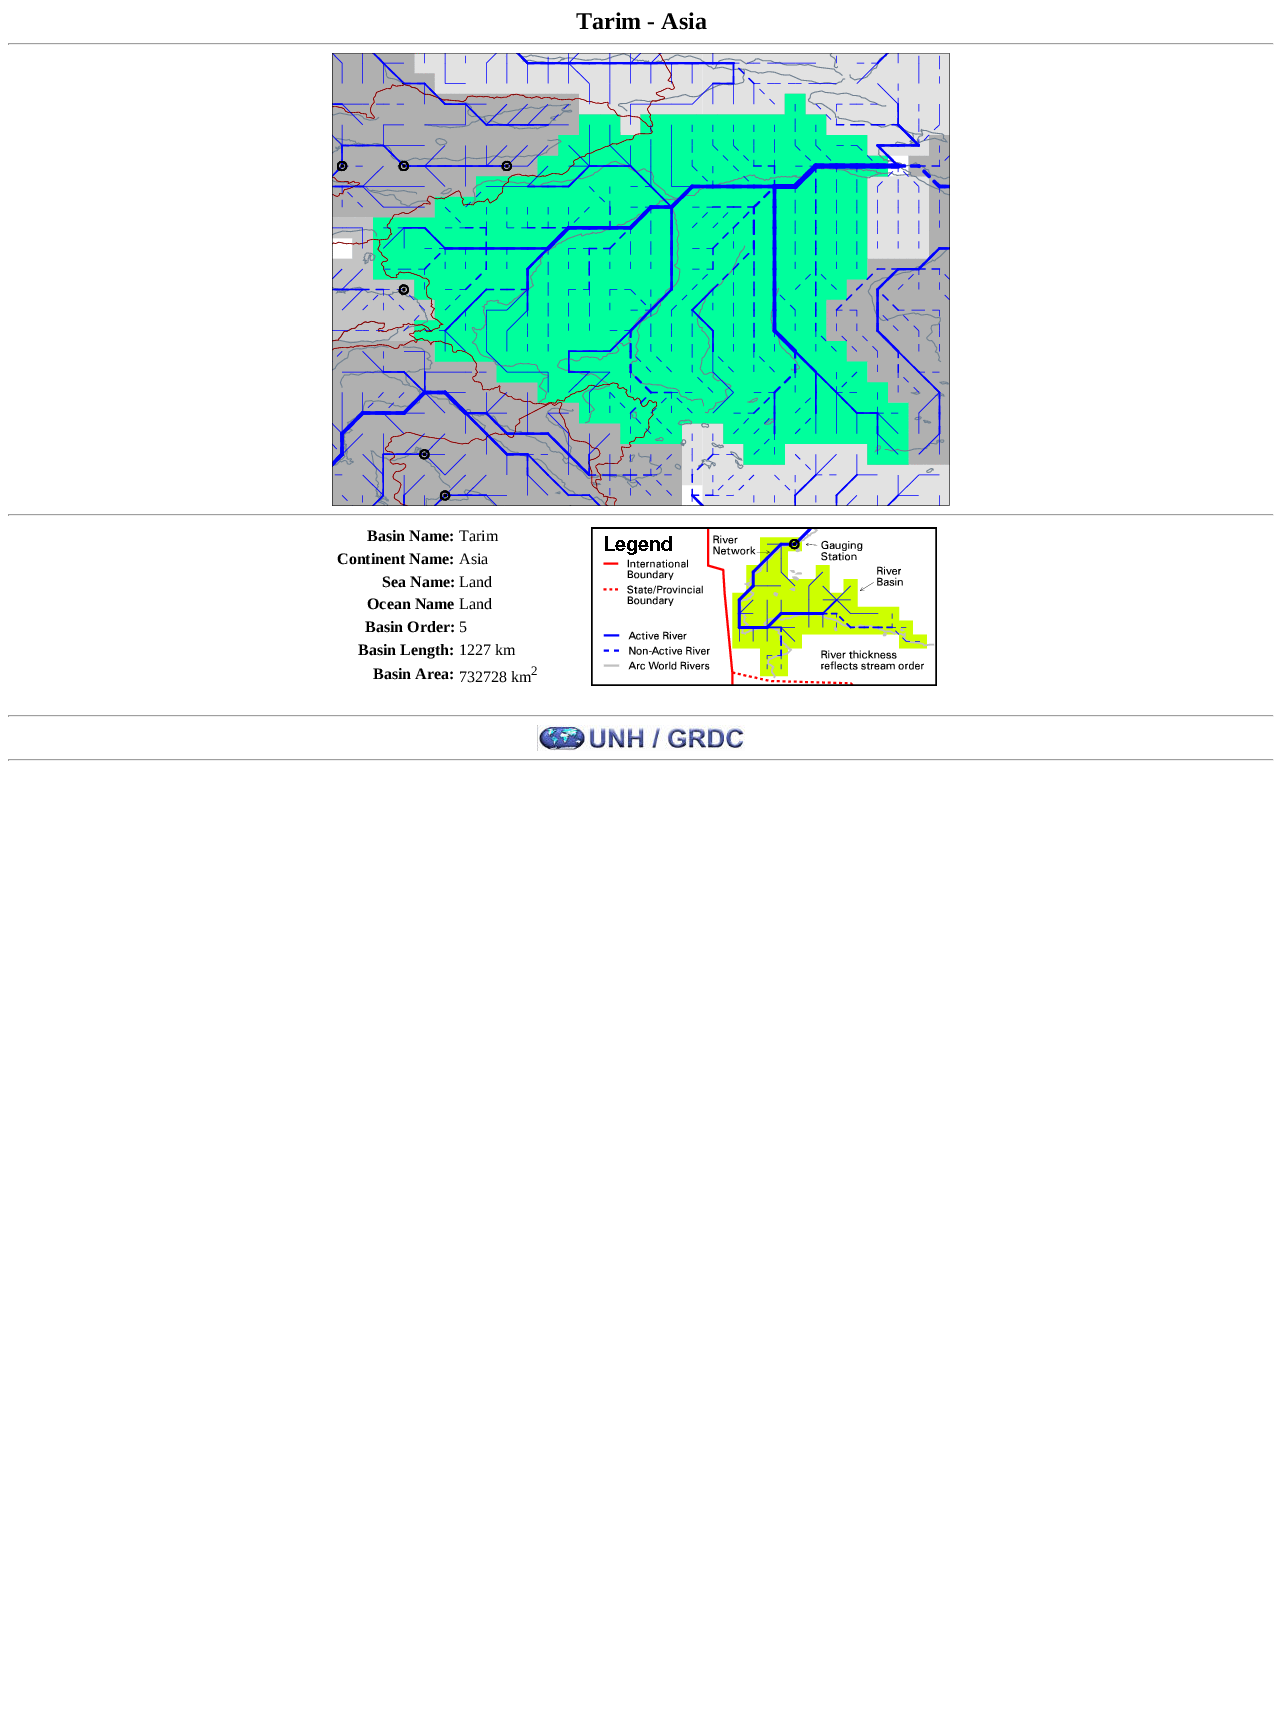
%!PS
<< /PageSize [1282 1717] >> setpagedevice
/picture { 5 dict begin { /h /w /y /x /name } { exch def } forall
  gsave x y translate w h scale
  w h 8 [w 0 0 h 0 0] name (r) file false 3 colorimage grestore end } def
0 1717 translate 1 -1 scale
4 setmiterlimit
1 setgray
0 0 1282 1717 rectfill
/LiberationSerif-Bold [24 0 0 -24 0 0] selectfont
0 setgray
576 29 moveto (Tarim - Asia) show
0.624 setgray
8 43 1266 1 rectfill
0.933 setgray
1273 43 1 2 rectfill
8 44 1266 1 rectfill
0.624 setgray
8 43 1 2 rectfill
(img1.rgb) 332 53 618 453 picture
8 514 1266 1 rectfill
0.933 setgray
1273 514 1 2 rectfill
8 515 1266 1 rectfill
0.624 setgray
8 514 1 2 rectfill
/LiberationSerif-Bold [16 0 0 -16 0 0] selectfont
0 setgray
367 541 moveto (Basin Name:) show
/LiberationSerif-Regular [16 0 0 -16 0 0] selectfont
459 541 moveto (Tarim) show
(img2.rgb) 591 527 346 159 picture
/LiberationSerif-Bold [16 0 0 -16 0 0] selectfont
337 564 moveto (Continent Name:) show
/LiberationSerif-Regular [16 0 0 -16 0 0] selectfont
459 564 moveto (Asia) show
/LiberationSerif-Bold [16 0 0 -16 0 0] selectfont
382 587 moveto (Sea Name:) show
/LiberationSerif-Regular [16 0 0 -16 0 0] selectfont
459 587 moveto (Land) show
/LiberationSerif-Bold [16 0 0 -16 0 0] selectfont
367 609 moveto (Ocean Name) show
/LiberationSerif-Regular [16 0 0 -16 0 0] selectfont
459 609 moveto (Land) show
/LiberationSerif-Bold [16 0 0 -16 0 0] selectfont
365 632 moveto (Basin Order:) show
/LiberationSerif-Regular [16 0 0 -16 0 0] selectfont
459 632 moveto (5) show
/LiberationSerif-Bold [16 0 0 -16 0 0] selectfont
358 655 moveto (Basin Length:) show
/LiberationSerif-Regular [16 0 0 -16 0 0] selectfont
459 655 moveto (1227 km) show
/LiberationSerif-Bold [16 0 0 -16 0 0] selectfont
373 679 moveto (Basin Area:) show
/LiberationSerif-Regular [16 0 0 -16 0 0] selectfont
459 682 moveto (732728 km) show
/LiberationSerif-Regular [13 0 0 -13 0 0] selectfont
531 675 moveto (2) show
0.624 setgray
8 715 1266 1 rectfill
0.933 setgray
1273 715 1 2 rectfill
8 716 1266 1 rectfill
0.624 setgray
8 715 1 2 rectfill
(img3.rgb) 537 725 208 26 picture
8 759 1266 1 rectfill
0.933 setgray
1273 759 1 2 rectfill
8 760 1266 1 rectfill
0.624 setgray
8 759 1 2 rectfill
showpage
